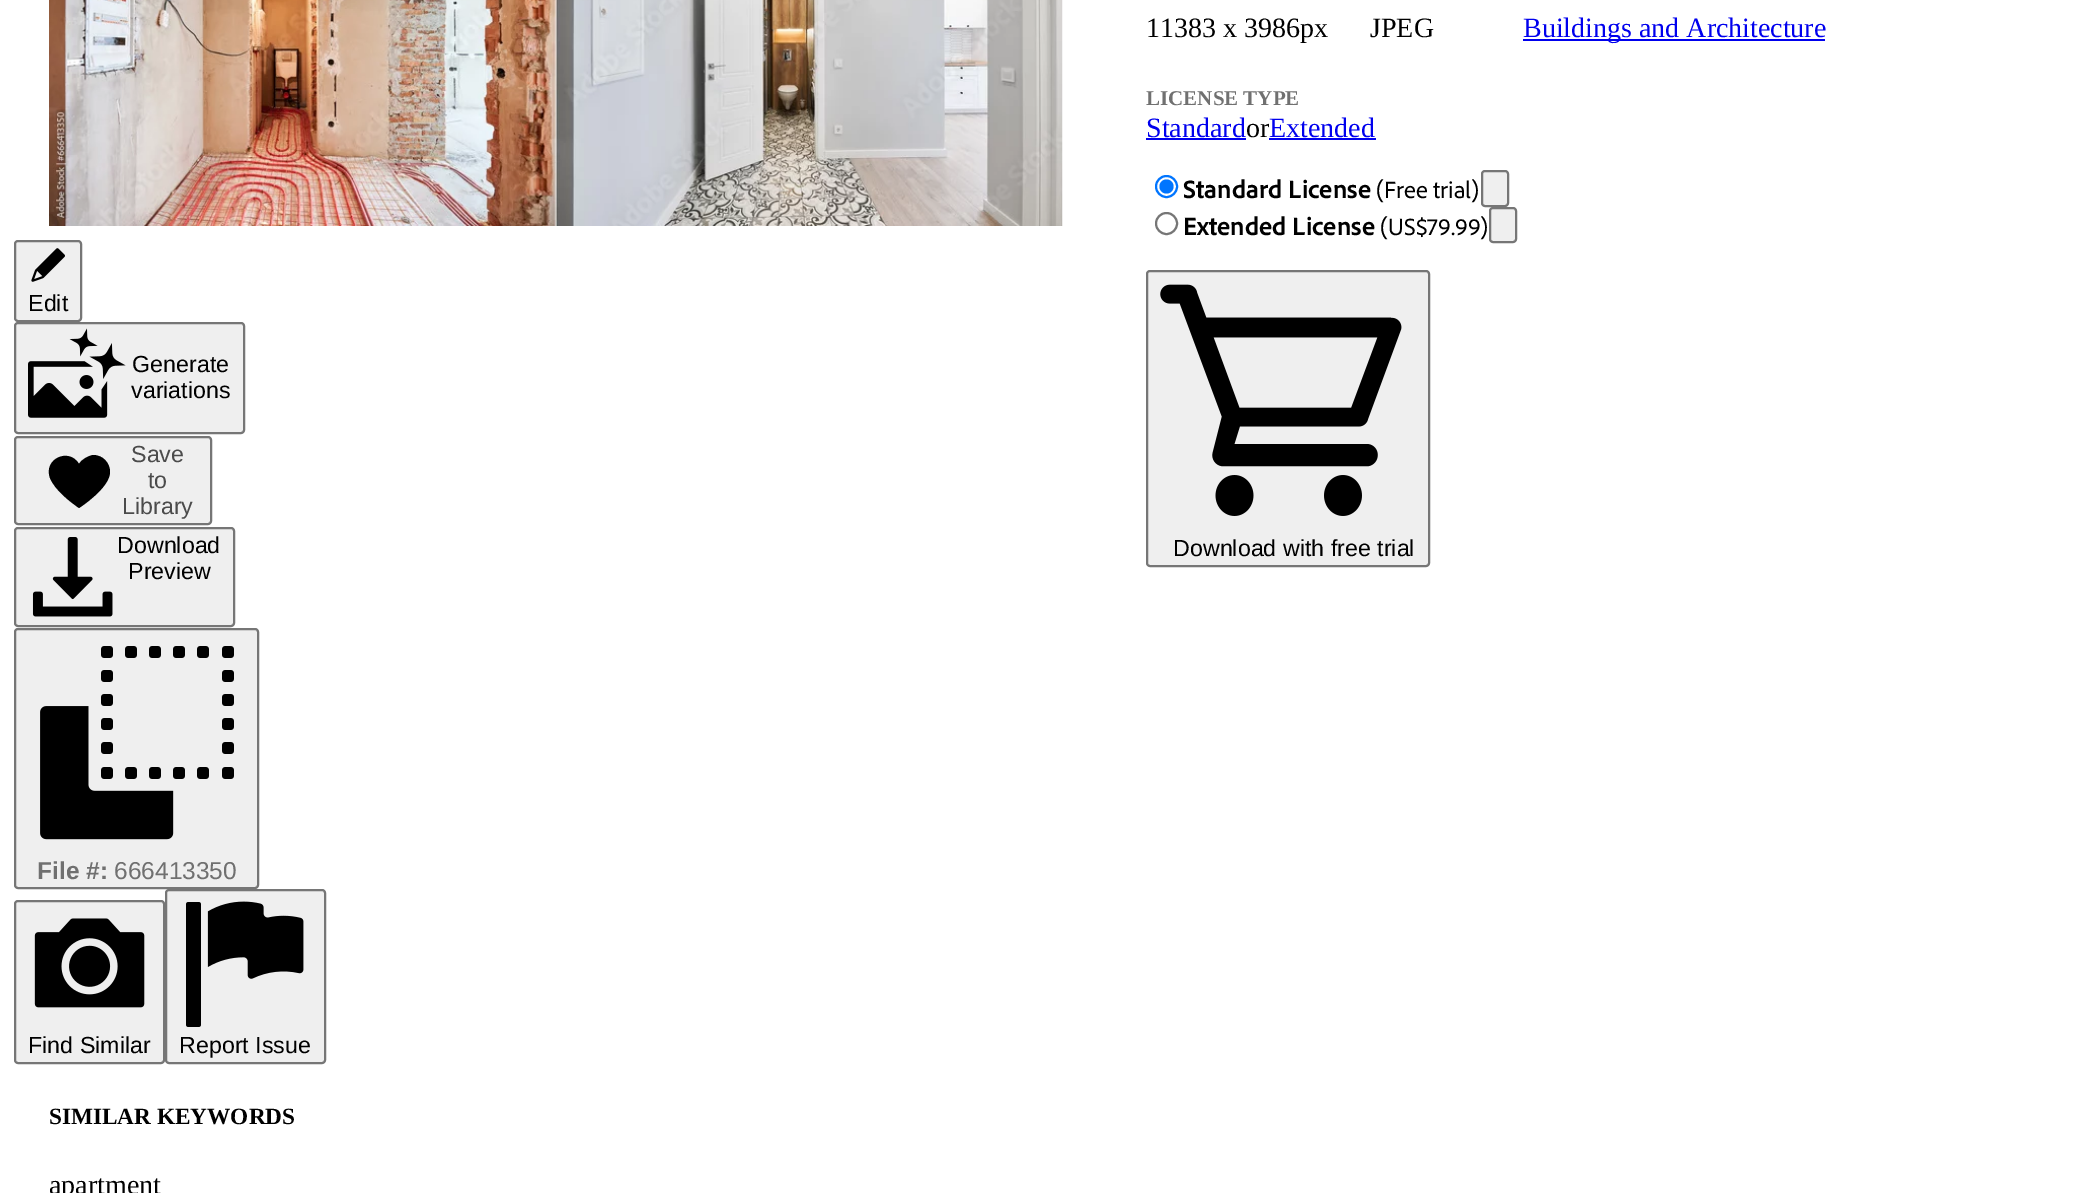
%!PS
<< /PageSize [2091 1193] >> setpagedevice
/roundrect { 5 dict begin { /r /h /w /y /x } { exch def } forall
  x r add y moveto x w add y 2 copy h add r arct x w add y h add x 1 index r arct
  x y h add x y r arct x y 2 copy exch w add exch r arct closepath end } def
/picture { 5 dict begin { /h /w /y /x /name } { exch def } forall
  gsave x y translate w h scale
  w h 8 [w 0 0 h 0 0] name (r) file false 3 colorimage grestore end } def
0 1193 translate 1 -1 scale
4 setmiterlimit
1 setgray
0 0 2091 1193 rectfill
(img1.rgb) 49 0 1014 226 picture
0.937 setgray
15 241 66 80 3 roundrect gsave fill grestore
0.463 setgray
2 setlinewidth
stroke
(img2.rgb) 31 248 34 34 picture
/LiberationSans-Regular [23.25 0 0 -23.25 0 0] selectfont
0 setgray
28 311 moveto (Edit) show
0.937 setgray
15 323 229 110 3 roundrect gsave fill grestore
0.463 setgray
stroke
(img3.rgb) 28 328 98 90 picture
0 setgray
132 372 moveto (Generate) show
131 398 moveto (variations) show
0.937 setgray
15 437 196 87 3 roundrect gsave fill grestore
0.463 setgray
stroke
0 setgray
newpath 93 455 moveto 88 456 82 459 79 464 curveto 69 447 43 459 50 478 curveto 55 490 69 501 79 508 curveto 79 508 110 488 110 472 curveto 110 463 103 455 93 455 curveto closepath eofill
0.294 setgray
131 462 moveto (Save) show
148 488 moveto (to) show
122 514 moveto (Library) show
0.937 setgray
15 528 219 98 3 roundrect gsave fill grestore
0.463 setgray
stroke
(img4.rgb) 32 537 81 80 picture
0 setgray
117 553 moveto (Download) show
128 579 moveto (Preview) show
0.937 setgray
15 629 243 259 3 roundrect gsave fill grestore
0.463 setgray
stroke
(img5.rgb) 40 646 194 194 picture
/LiberationSans-Bold [24.5 0 0 -24.5 0 0] selectfont
0.439 setgray
37 879 moveto (File #:) show
/LiberationSans-Regular [24.5 0 0 -24.5 0 0] selectfont
114 879 moveto (666413350) show
0.937 setgray
15 901 149 162 3 roundrect gsave fill grestore
0.463 setgray
stroke
(img6.rgb) 34 918 111 90 picture
/LiberationSans-Regular [23.25 0 0 -23.25 0 0] selectfont
0 setgray
28 1053 moveto (Find Similar) show
0.937 setgray
166 890 159 173 3 roundrect gsave fill grestore
0.463 setgray
stroke
(img7.rgb) 186 901 118 126 picture
0 setgray
179 1053 moveto (Report Issue) show
/LiberationSerif-Regular [28 0 0 -28 0 0] selectfont
1146 37 moveto (11383 x 3986px) show
1370 37 moveto (JPEG) show
0 0 0.933 setrgbcolor
1523 39 302 2 rectfill
1523 37 moveto (Buildings and Architecture) show
/LiberationSerif-Bold [21 0 0 -21 0 0] selectfont
0.439 setgray
1146 105 moveto (LICENSE TYPE) show
/LiberationSerif-Regular [28 0 0 -28 0 0] selectfont
0 0 0.933 setrgbcolor
1146 137 moveto (Standard) show
0 setgray
1246 137 moveto (or) show
0 0 0.933 setrgbcolor
1146 138 100 2 rectfill
1269 138 107 2 rectfill
1269 137 moveto (Extended) show
0 0.459 1 setrgbcolor
newpath 1166.5 186.5 10.5 0 360 arc closepath stroke
newpath 1166.5 186.5 7 0 360 arc closepath fill
/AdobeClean-Bold [26.25 0 0 -26.25 0 0] selectfont
0 setgray
1183 198 moveto (Standard License) show
/AdobeClean-Regular [24.5 0 0 -24.5 0 0] selectfont
1376 198 moveto (\(Free trial\)) show
0.937 setgray
1482 171 26 35 3 roundrect gsave fill grestore
0.463 setgray
stroke
newpath 1166.5 223.5 10.5 0 360 arc closepath stroke
/AdobeClean-Bold [26.25 0 0 -26.25 0 0] selectfont
0 setgray
1183 235 moveto (Extended License) show
/AdobeClean-Regular [24.5 0 0 -24.5 0 0] selectfont
1380 235 moveto (\(US$79.99\)) show
0.937 setgray
1490 208 26 34 3 roundrect gsave fill grestore
0.463 setgray
stroke
0.937 setgray
1147 271 282 295 3 roundrect gsave fill grestore
0.463 setgray
stroke
(img8.rgb) 1160 284 242 232 picture
/LiberationSans-Regular [23.25 0 0 -23.25 0 0] selectfont
0 setgray
1173 556 moveto (Download with free trial) show
/LiberationSerif-Bold [23.25 0 0 -23.25 0 0] selectfont
49 1124 moveto (SIMILAR KEYWORDS) show
/LiberationSerif-Regular [28 0 0 -28 0 0] selectfont
49 1194 moveto (apartment) show
showpage
